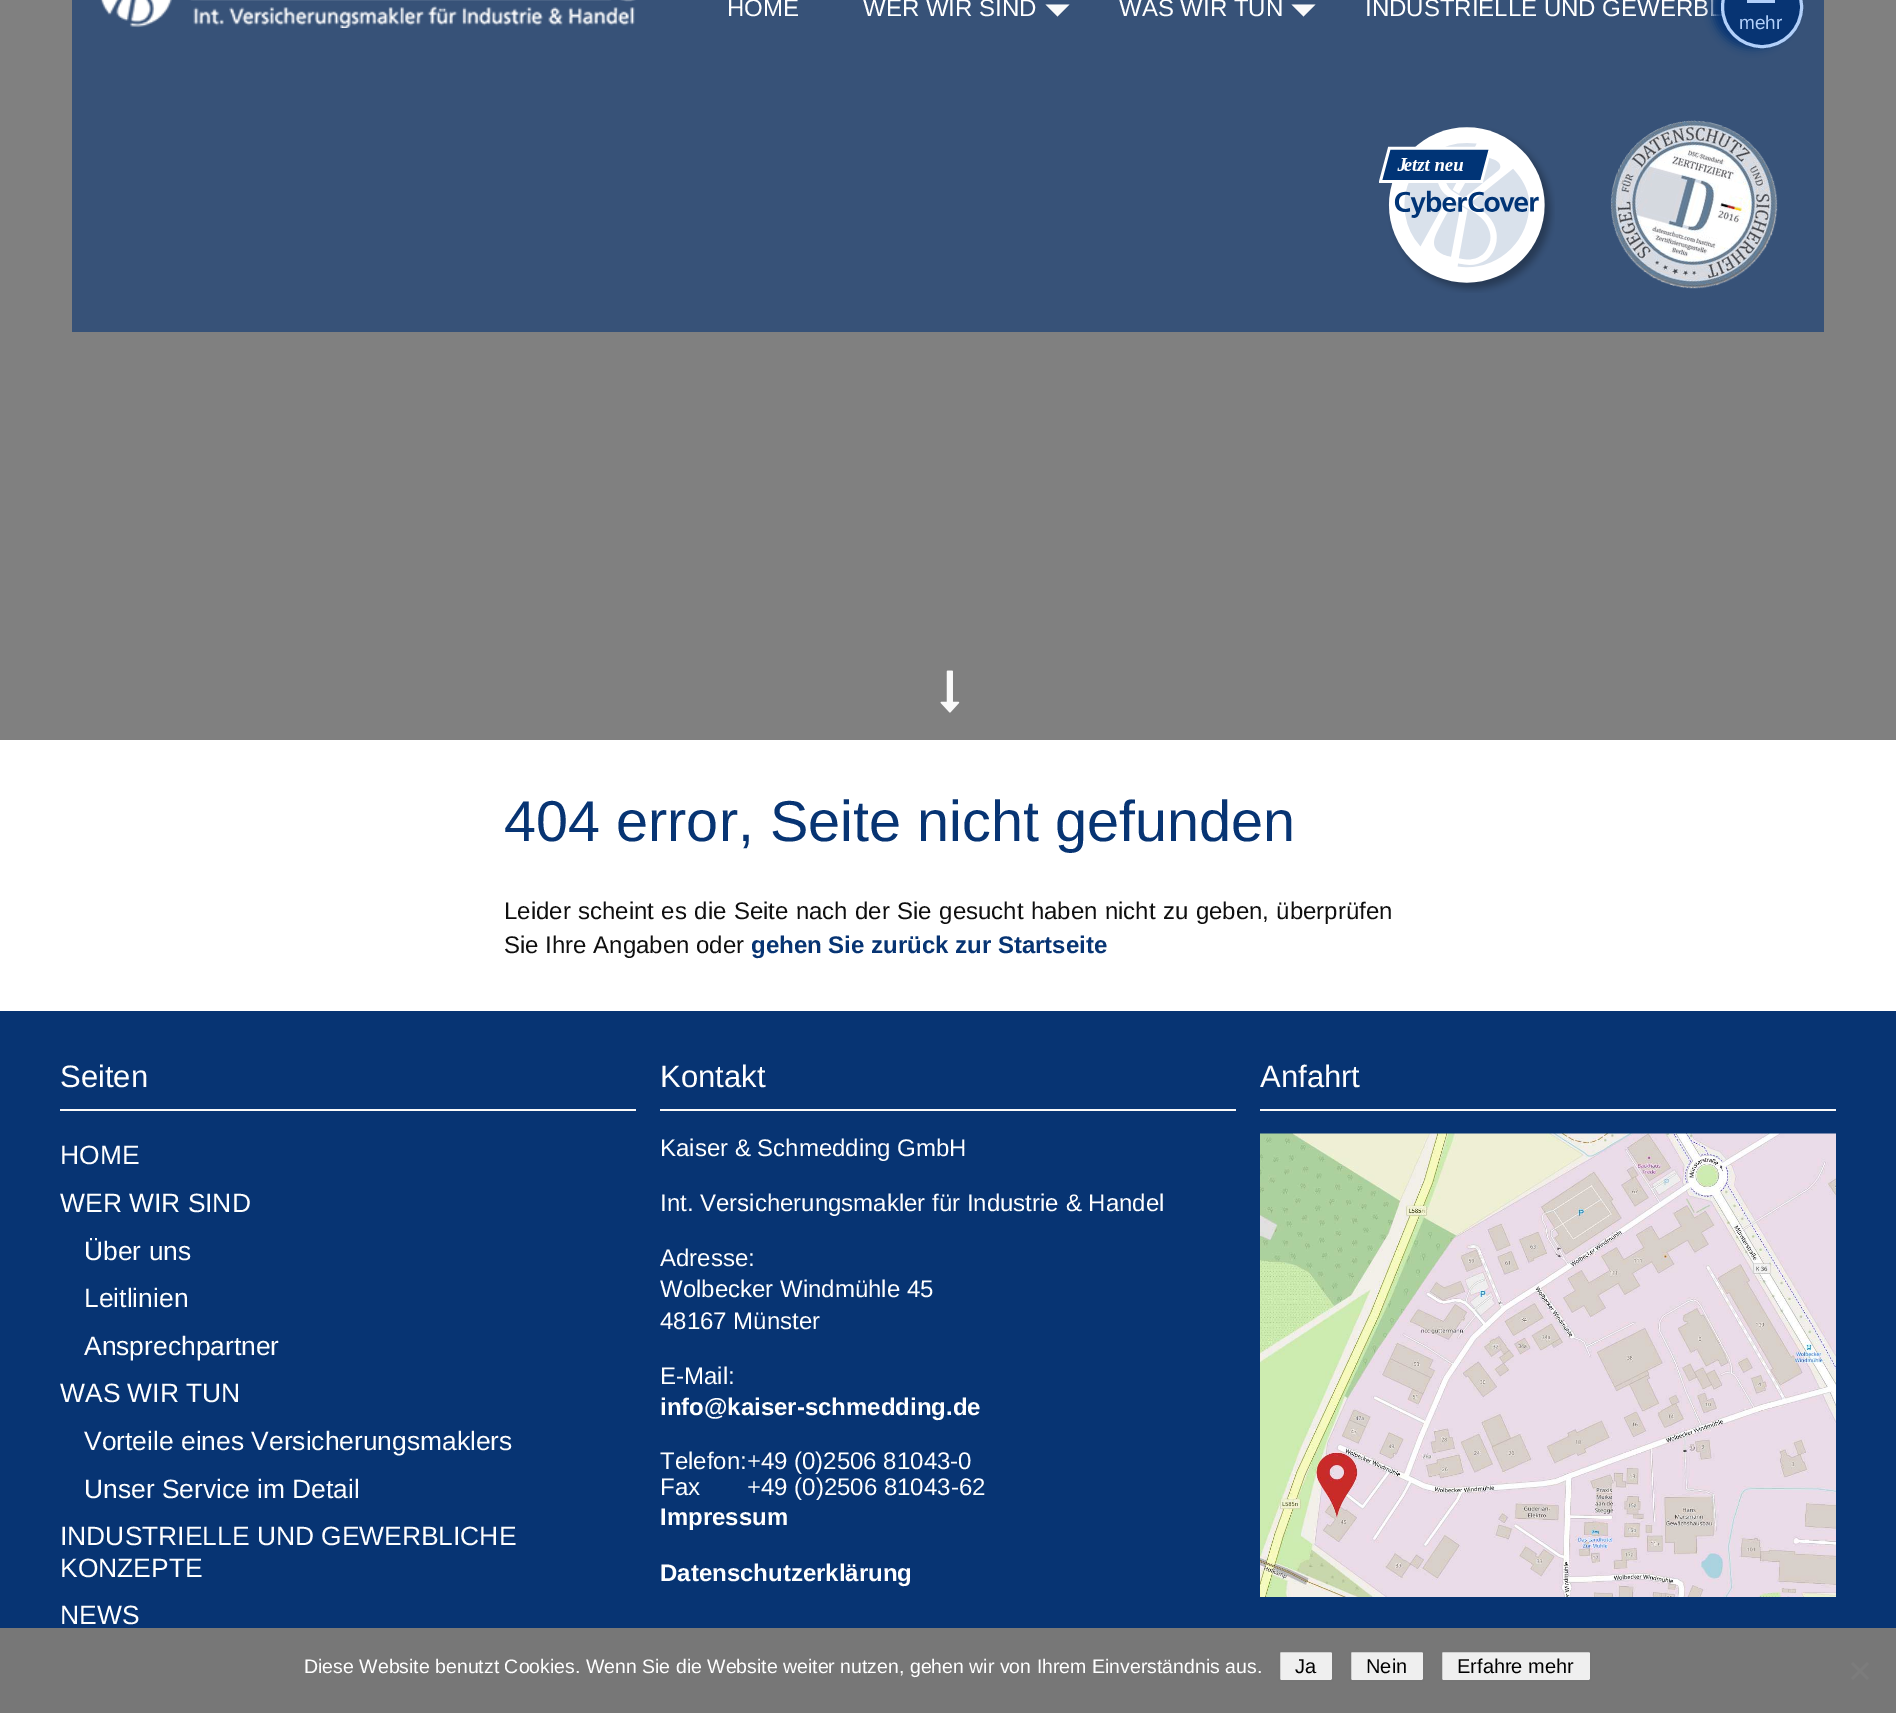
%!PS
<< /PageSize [1896 1713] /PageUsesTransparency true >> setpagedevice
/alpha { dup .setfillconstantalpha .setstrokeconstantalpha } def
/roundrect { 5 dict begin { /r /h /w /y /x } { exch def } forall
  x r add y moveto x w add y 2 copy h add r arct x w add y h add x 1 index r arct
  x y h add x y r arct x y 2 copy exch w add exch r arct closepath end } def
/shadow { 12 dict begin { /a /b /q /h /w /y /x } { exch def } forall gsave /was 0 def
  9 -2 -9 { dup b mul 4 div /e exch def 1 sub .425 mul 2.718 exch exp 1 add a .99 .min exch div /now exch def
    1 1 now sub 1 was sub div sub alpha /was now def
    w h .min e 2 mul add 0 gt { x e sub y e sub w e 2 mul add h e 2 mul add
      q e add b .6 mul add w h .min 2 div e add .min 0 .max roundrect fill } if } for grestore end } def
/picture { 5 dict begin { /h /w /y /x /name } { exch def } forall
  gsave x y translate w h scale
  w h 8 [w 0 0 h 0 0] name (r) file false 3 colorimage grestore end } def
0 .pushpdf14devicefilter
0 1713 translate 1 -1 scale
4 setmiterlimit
1 setgray
0 0 1896 1713 rectfill
0.502 setgray
0 0 1896 740 rectfill
0.216 0.322 0.471 setrgbcolor
72 0 1752 332 rectfill
(img1.rgb) 100 0 536 28 picture
/LiberationSans-Regular [24 0 0 -24 0 0] selectfont
1 setgray
727 16 moveto (HOME) show
863 16 moveto (WER WIR SIND) show
0.98 setgray
newpath 1045.5 4.5 moveto 1069.5 4.5 lineto 1057.5 16.5 lineto closepath fill
1 setgray
1119 16 moveto (WAS WIR TUN) show
0.98 setgray
newpath 1291.5 4.5 moveto 1315.5 4.5 lineto 1303.5 16.5 lineto closepath fill
1 setgray
1365 16 moveto (INDUSTRIELLE UND GEWERBL) show
0.027 0.204 0.451 setrgbcolor
1712 -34 82 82 41 4.5 1 shadow
newpath 1762 7 39.5 0 360 arc closepath gsave fill grestore
0.698 0.816 0.98 setrgbcolor
3 setlinewidth
stroke
1747 0 28 3 rectfill
/LiberationSans-Regular [19 0 0 -19 0 0] selectfont
1739 29 moveto (mehr) show
(img2.rgb) 1379 127 176 166 picture
(img3.rgb) 1610 120 168 169 picture
(img4.rgb) 940 670 20 43 picture
/LiberationSans-Regular [57.6 0 0 -57.6 0 0] selectfont
0.027 0.204 0.451 setrgbcolor
504 841 moveto (404 error, Seite nicht gefunden) show
/LiberationSans-Regular [24 0 0 -24 0 0] selectfont
0.059 setgray
504 919 moveto 0.7 0 32 (Leider scheint es die Seite nach der Sie gesucht haben nicht zu geben, überprüfen) widthshow
504 953 moveto (Sie Ihre Angaben oder) show
/LiberationSans-Bold [24 0 0 -24 0 0] selectfont
0.027 0.204 0.451 setrgbcolor
751 953 moveto (gehen Sie zurück zur Startseite) show
0 1011 1896 617 rectfill
0.98 setgray
60 1109 576 2 rectfill
/LiberationSans-Regular [31 0 0 -31 0 0] selectfont
1 setgray
60 1087 moveto (Seiten) show
/LiberationSans-Regular [26.4 0 0 -26.4 0 0] selectfont
60 1164 moveto (HOME) show
60 1212 moveto (WER WIR SIND) show
84 1260 moveto (Über uns) show
84 1307 moveto (Leitlinien) show
84 1355 moveto (Ansprechpartner) show
60 1402 moveto (WAS WIR TUN) show
84 1450 moveto (Vorteile eines Versicherungsmaklers) show
84 1498 moveto (Unser Service im Detail) show
60 1545 moveto (INDUSTRIELLE UND GEWERBLICHE) show
60 1577 moveto (KONZEPTE) show
60 1624 moveto (NEWS) show
0.98 setgray
660 1109 576 2 rectfill
/LiberationSans-Regular [31 0 0 -31 0 0] selectfont
1 setgray
660 1087 moveto (Kontakt) show
/LiberationSans-Regular [24 0 0 -24 0 0] selectfont
660 1156 moveto (Kaiser & Schmedding GmbH) show
660 1211 moveto (Int. Versicherungsmakler für Industrie & Handel) show
660 1266 moveto (Adresse:) show
660 1297 moveto (Wolbecker Windmühle 45) show
660 1329 moveto (48167 Münster) show
660 1384 moveto (E-Mail:) show
/LiberationSans-Bold [24 0 0 -24 0 0] selectfont
660 1415 moveto (info@kaiser-schmedding.de) show
/LiberationSans-Regular [24 0 0 -24 0 0] selectfont
660 1469 moveto (Telefon:+49 \(0\)2506 81043-0) show
660 1495 moveto (Fax) show
747 1495 moveto (+49 \(0\)2506 81043-62) show
/LiberationSans-Bold [24 0 0 -24 0 0] selectfont
660 1525 moveto (Impressum) show
660 1581 moveto (Datenschutzerklärung) show
0.98 setgray
1260 1109 576 2 rectfill
/LiberationSans-Regular [31 0 0 -31 0 0] selectfont
1 setgray
1260 1087 moveto (Anfahrt) show
(img5.rgb) 1260 1133 576 464 picture
0.467 setgray
0 1628 1896 85 rectfill
/LiberationSans-Regular [19.5 0 0 -19.5 0 0] selectfont
1 setgray
304 1673 moveto (Diese Website benutzt Cookies. Wenn Sie die Website weiter nutzen, gehen wir von Ihrem Einverständnis aus.) show
0.937 setgray
1279 1651 54 30 2 roundrect gsave fill grestore
0.463 setgray
2 setlinewidth
stroke
/LiberationSans-Regular [20 0 0 -20 0 0] selectfont
0 setgray
1295 1673 moveto (Ja) show
0.937 setgray
1350 1651 74 30 2 roundrect gsave fill grestore
0.463 setgray
stroke
0 setgray
1366 1673 moveto (Nein) show
0.937 setgray
1441 1651 150 30 2 roundrect gsave fill grestore
0.463 setgray
stroke
0 setgray
1457 1673 moveto (Erfahre mehr) show
0.486 setgray
newpath 1867 1662 moveto 1869 1664 lineto 1853 1680 lineto 1851 1678 lineto closepath fill
newpath 1851 1664 moveto 1853 1662 lineto 1869 1678 lineto 1867 1680 lineto closepath fill
.poppdf14devicefilter showpage
